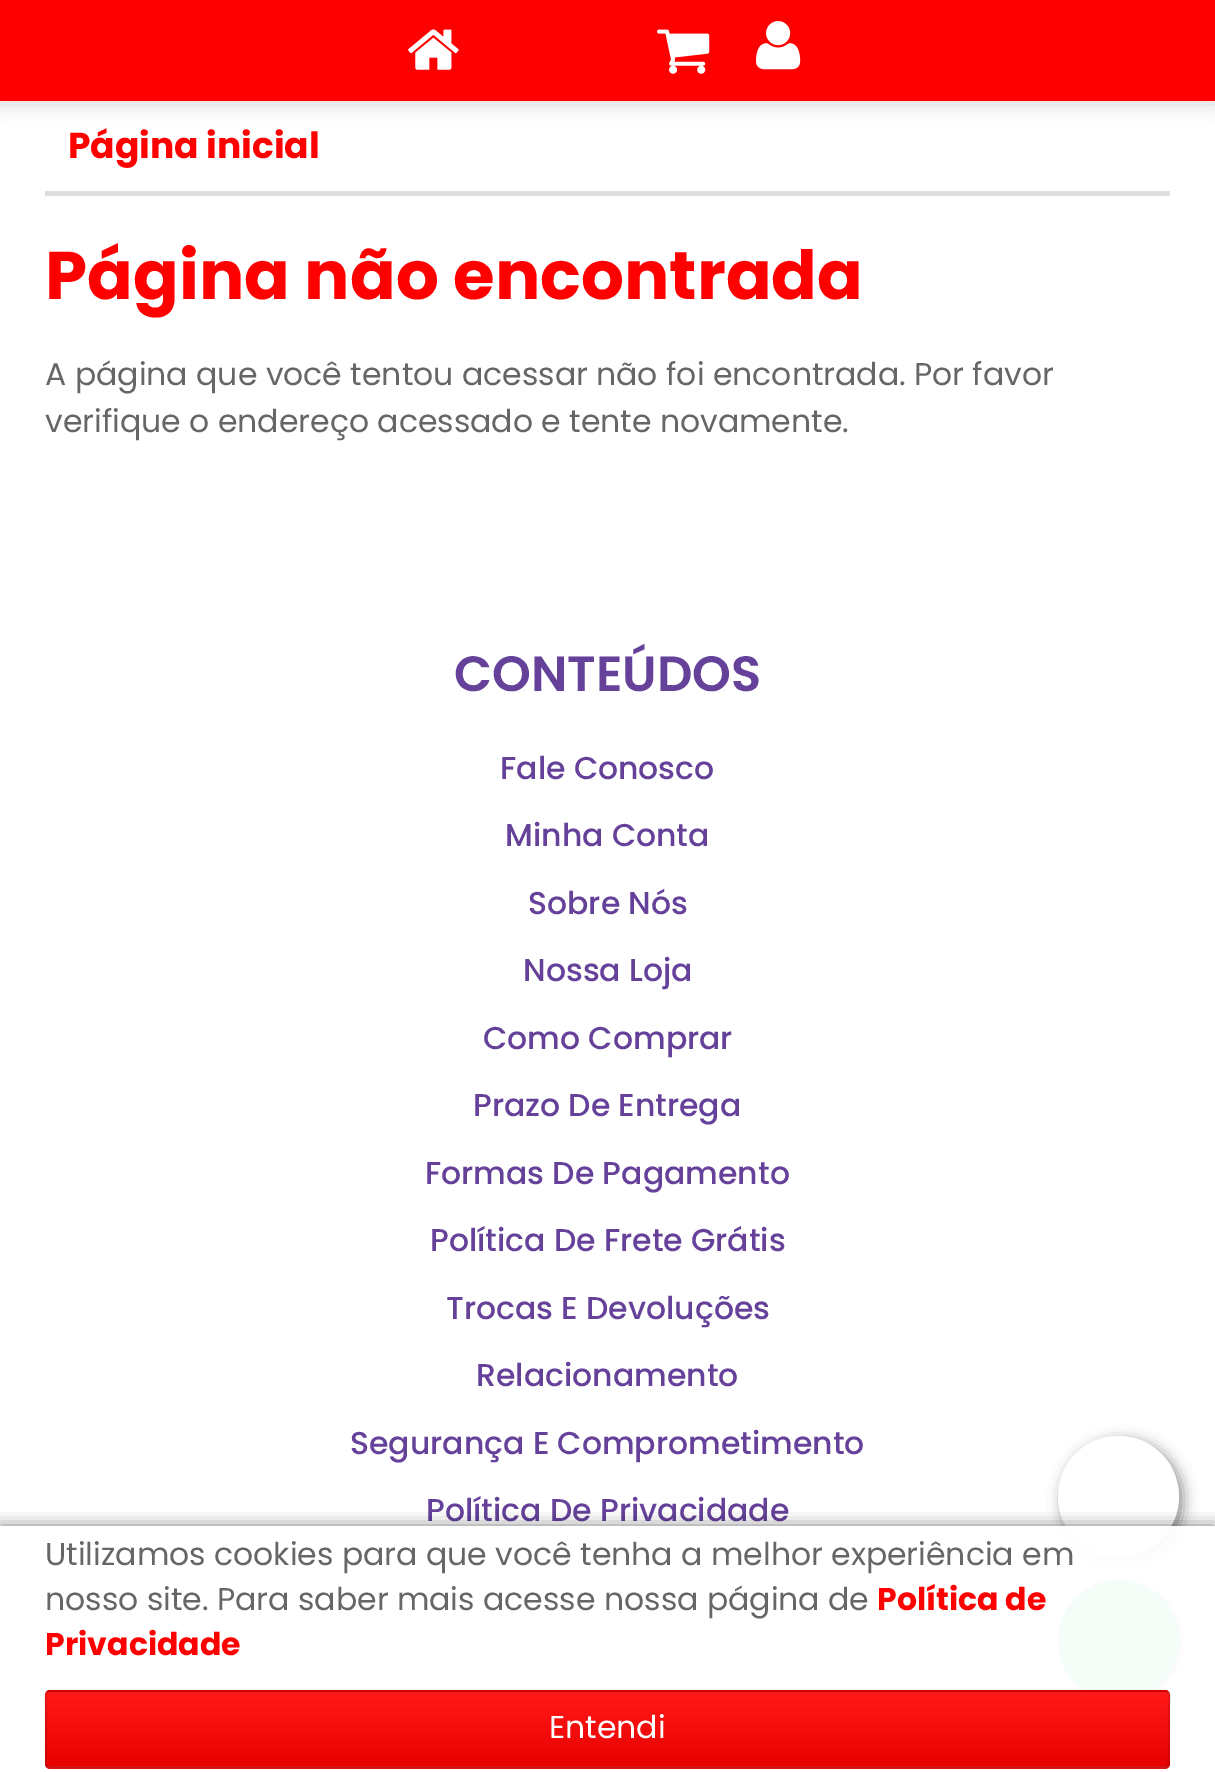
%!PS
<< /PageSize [1215 1772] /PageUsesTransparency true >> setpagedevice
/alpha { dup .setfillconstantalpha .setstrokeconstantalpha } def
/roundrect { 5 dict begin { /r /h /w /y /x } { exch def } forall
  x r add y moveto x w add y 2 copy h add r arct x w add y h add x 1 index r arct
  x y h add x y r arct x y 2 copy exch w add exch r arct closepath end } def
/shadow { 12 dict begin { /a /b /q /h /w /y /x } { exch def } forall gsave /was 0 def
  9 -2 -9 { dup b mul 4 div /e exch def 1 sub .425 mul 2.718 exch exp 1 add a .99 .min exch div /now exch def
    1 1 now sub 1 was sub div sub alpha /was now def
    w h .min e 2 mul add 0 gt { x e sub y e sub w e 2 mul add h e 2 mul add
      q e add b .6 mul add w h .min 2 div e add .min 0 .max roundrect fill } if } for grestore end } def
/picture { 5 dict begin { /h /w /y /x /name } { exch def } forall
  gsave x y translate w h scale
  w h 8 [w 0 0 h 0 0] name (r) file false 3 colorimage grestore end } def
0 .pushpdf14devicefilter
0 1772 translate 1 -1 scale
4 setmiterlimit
1 setgray
0 0 1215 1772 rectfill
0 setgray
-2 -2 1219 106 0 10 0.16 shadow
1 0 0 setrgbcolor
0 0 1215 101 rectfill
(img1.rgb) 408 29 51 41 picture
(img2.rgb) 657 29 53 45 picture
(img3.rgb) 756 21 45 49 picture
0.871 setgray
45 191 1125 5 rectfill
/Poppins-Bold [36 0 0 -36 0 0] selectfont
1 0 0 setrgbcolor
68 158 moveto (Página inicial) show
/Poppins-Bold [67.5 0 0 -67.5 0 0] selectfont
45 299 moveto (Página não encontrada) show
/Poppins-Regular [31.5 0 0 -31.5 0 0] selectfont
0.4 setgray
45 385 moveto (A página que você tentou acessar não foi encontrada. Por favor) show
45 432 moveto (verifique o endereço acessado e tente novamente.) show
/Poppins-SemiBold [49.5 0 0 -49.5 0 0] selectfont
0.396 0.255 0.604 setrgbcolor
454 691 moveto (CONTEÚDOS) show
/Poppins-Medium [31.5 0 0 -31.5 0 0] selectfont
500 779 moveto (Fale Conosco) show
505 846 moveto (Minha Conta) show
528 914 moveto (Sobre Nós) show
523 981 moveto (Nossa Loja) show
483 1049 moveto (Como Comprar) show
473 1116 moveto (Prazo De Entrega) show
425 1184 moveto (Formas De Pagamento) show
430 1251 moveto (Política De Frete Grátis) show
446 1319 moveto (Trocas E Devoluções) show
476 1386 moveto (Relacionamento) show
350 1454 moveto (Segurança E Comprometimento) show
426 1521 moveto (Política De Privacidade) show
0.533 setgray
1060 1582 121 121 60.5 2 1 shadow
0 setgray
1062 1440 122 122 61 7 0.4 shadow
0.145 0.827 0.4 setrgbcolor
newpath 1118.5 1640.5 60.5 0 360 arc closepath fill
1 setgray
newpath 1118.5 1496.5 60.5 0 360 arc closepath fill
gsave
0 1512 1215 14 rectclip
0 setgray
0 1526 1215 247 0 8 0.5 shadow
grestore
0.95 alpha
1053 1526 140 181 rectfill
/Poppins-Regular [31.5 0 0 -31.5 0 0] selectfont
1 alpha
0.4 setgray
45 1565 moveto (Utilizamos cookies para que você tenha a melhor experiência em) show
45 1610 moveto (nosso site. Para saber mais acesse nossa página de) show
/Poppins-Bold [31.5 0 0 -31.5 0 0] selectfont
1 0 0 setrgbcolor
877 1610 moveto (Política de) show
45 1655 moveto (Privacidade) show
45 1690 1125 79 5 roundrect fill
gsave
45 1690 1125 79 5 roundrect clip newpath
0.1 alpha
gsave newpath 45 1690 moveto 1170 1690 lineto 1170 1692 lineto 45 1692 lineto closepath clip newpath
<< /ShadingType 2 /ColorSpace /DeviceRGB /Coords [608 1618 608 1692] /Extend [true true] /Function << /FunctionType 2 /Domain [0 1] /C0 [1 1 1] /C1 [0 0 0] /N 1 >> >> shfill grestore
grestore
0.1 alpha
gsave newpath 45 1692 moveto 1170 1692 lineto 1170 1766 lineto 45 1766 lineto closepath clip newpath
<< /ShadingType 2 /ColorSpace /DeviceRGB /Coords [608 1692 608 1766] /Extend [true true] /Function << /FunctionType 2 /Domain [0 1] /C0 [1 1 1] /C1 [0 0 0] /N 1 >> >> shfill grestore
gsave
45 1690 1125 79 5 roundrect clip newpath
gsave newpath 45 1766 moveto 1170 1766 lineto 1170 1769 lineto 45 1769 lineto closepath clip newpath
<< /ShadingType 2 /ColorSpace /DeviceRGB /Coords [608 1766 608 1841] /Extend [true true] /Function << /FunctionType 2 /Domain [0 1] /C0 [1 1 1] /C1 [0 0 0] /N 1 >> >> shfill grestore
grestore
0.2 alpha
0 setgray
2.2 setlinewidth
newpath 1168 1766.5 moveto 1165.5 1767.5 lineto 49.5 1767.5 lineto 47 1766.5 lineto stroke
0.1 alpha
newpath 47 1766.5 moveto 46 1764 lineto 46 1706 lineto 46 1705.5 43 1691 49.5 1691 curveto 1165.5 1691 lineto 1172 1691 1169 1705.5 1169 1706 curveto 1169 1764 lineto 1168 1766.5 lineto stroke
/Poppins-Regular [31.5 0 0 -31.5 0 0] selectfont
1 alpha
1 setgray
549 1738 moveto (Entendi) show
.poppdf14devicefilter showpage
